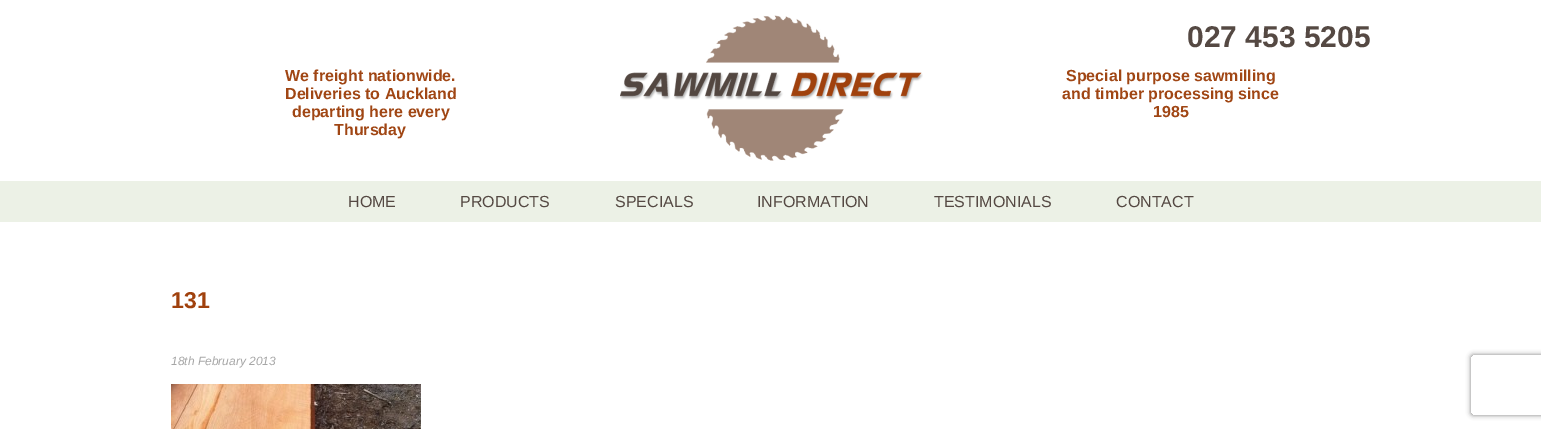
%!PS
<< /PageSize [1541 429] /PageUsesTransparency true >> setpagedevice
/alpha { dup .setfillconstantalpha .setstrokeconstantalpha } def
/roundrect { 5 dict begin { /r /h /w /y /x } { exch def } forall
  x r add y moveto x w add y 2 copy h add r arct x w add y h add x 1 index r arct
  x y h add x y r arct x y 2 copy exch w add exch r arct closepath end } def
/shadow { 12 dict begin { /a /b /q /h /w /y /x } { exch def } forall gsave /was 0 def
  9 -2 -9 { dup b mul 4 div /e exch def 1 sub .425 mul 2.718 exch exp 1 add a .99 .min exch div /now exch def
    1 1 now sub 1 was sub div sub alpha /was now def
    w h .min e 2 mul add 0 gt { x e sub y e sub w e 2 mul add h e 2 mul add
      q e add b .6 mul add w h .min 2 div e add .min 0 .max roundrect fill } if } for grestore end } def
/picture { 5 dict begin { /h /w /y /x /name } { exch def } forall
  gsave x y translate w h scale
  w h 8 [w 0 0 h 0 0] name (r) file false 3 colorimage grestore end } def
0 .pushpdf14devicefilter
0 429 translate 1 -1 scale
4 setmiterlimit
1 setgray
0 0 1541 429 rectfill
(img1.rgb) 620 15 303 146 picture
/LiberationSans-Bold [30 0 0 -30 0 0] selectfont
0.333 0.286 0.263 setrgbcolor
1187 47 moveto (027 453 5205) show
/LiberationSans-Bold [16 0 0 -16 0 0] selectfont
0.627 0.275 0.078 setrgbcolor
285 81 moveto (We freight nationwide.) show
285 99 moveto (Deliveries to Auckland) show
292 117 moveto (departing here every) show
334 135 moveto (Thursday) show
1066 81 moveto (Special purpose sawmilling) show
1062 99 moveto (and timber processing since) show
1153 117 moveto (1985) show
0.925 0.945 0.902 setrgbcolor
0 181 1541 41 rectfill
/LiberationSans-Regular [16 0 0 -16 0 0] selectfont
0.333 0.286 0.263 setrgbcolor
348 207 moveto (HOME) show
460 207 moveto (PRODUCTS) show
615 207 moveto (SPECIALS) show
757 207 moveto (INFORMATION) show
934 207 moveto (TESTIMONIALS) show
1116 207 moveto (CONTACT) show
/LiberationSans-Bold [23 0 0 -23 0 0] selectfont
0.627 0.255 0.051 setrgbcolor
171 308 moveto (131) show
/LiberationSans-Italic [12 0 0 -12 0 0] selectfont
0.651 setgray
171 365 moveto (18th February 2013) show
(img2.rgb) 171 384 250 45 picture
gsave
newpath 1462 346 moveto 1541 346 lineto 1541 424 lineto 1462 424 lineto closepath 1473 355 moveto 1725 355 lineto 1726 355 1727 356 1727 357 curveto 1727 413 lineto 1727 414 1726 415 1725 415 curveto 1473 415 lineto 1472 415 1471 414 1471 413 curveto 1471 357 lineto 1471 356 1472 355 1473 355 curveto closepath eoclip newpath
0.502 setgray
1471 355 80 60 2 2.5 1 shadow
grestore
.poppdf14devicefilter showpage
